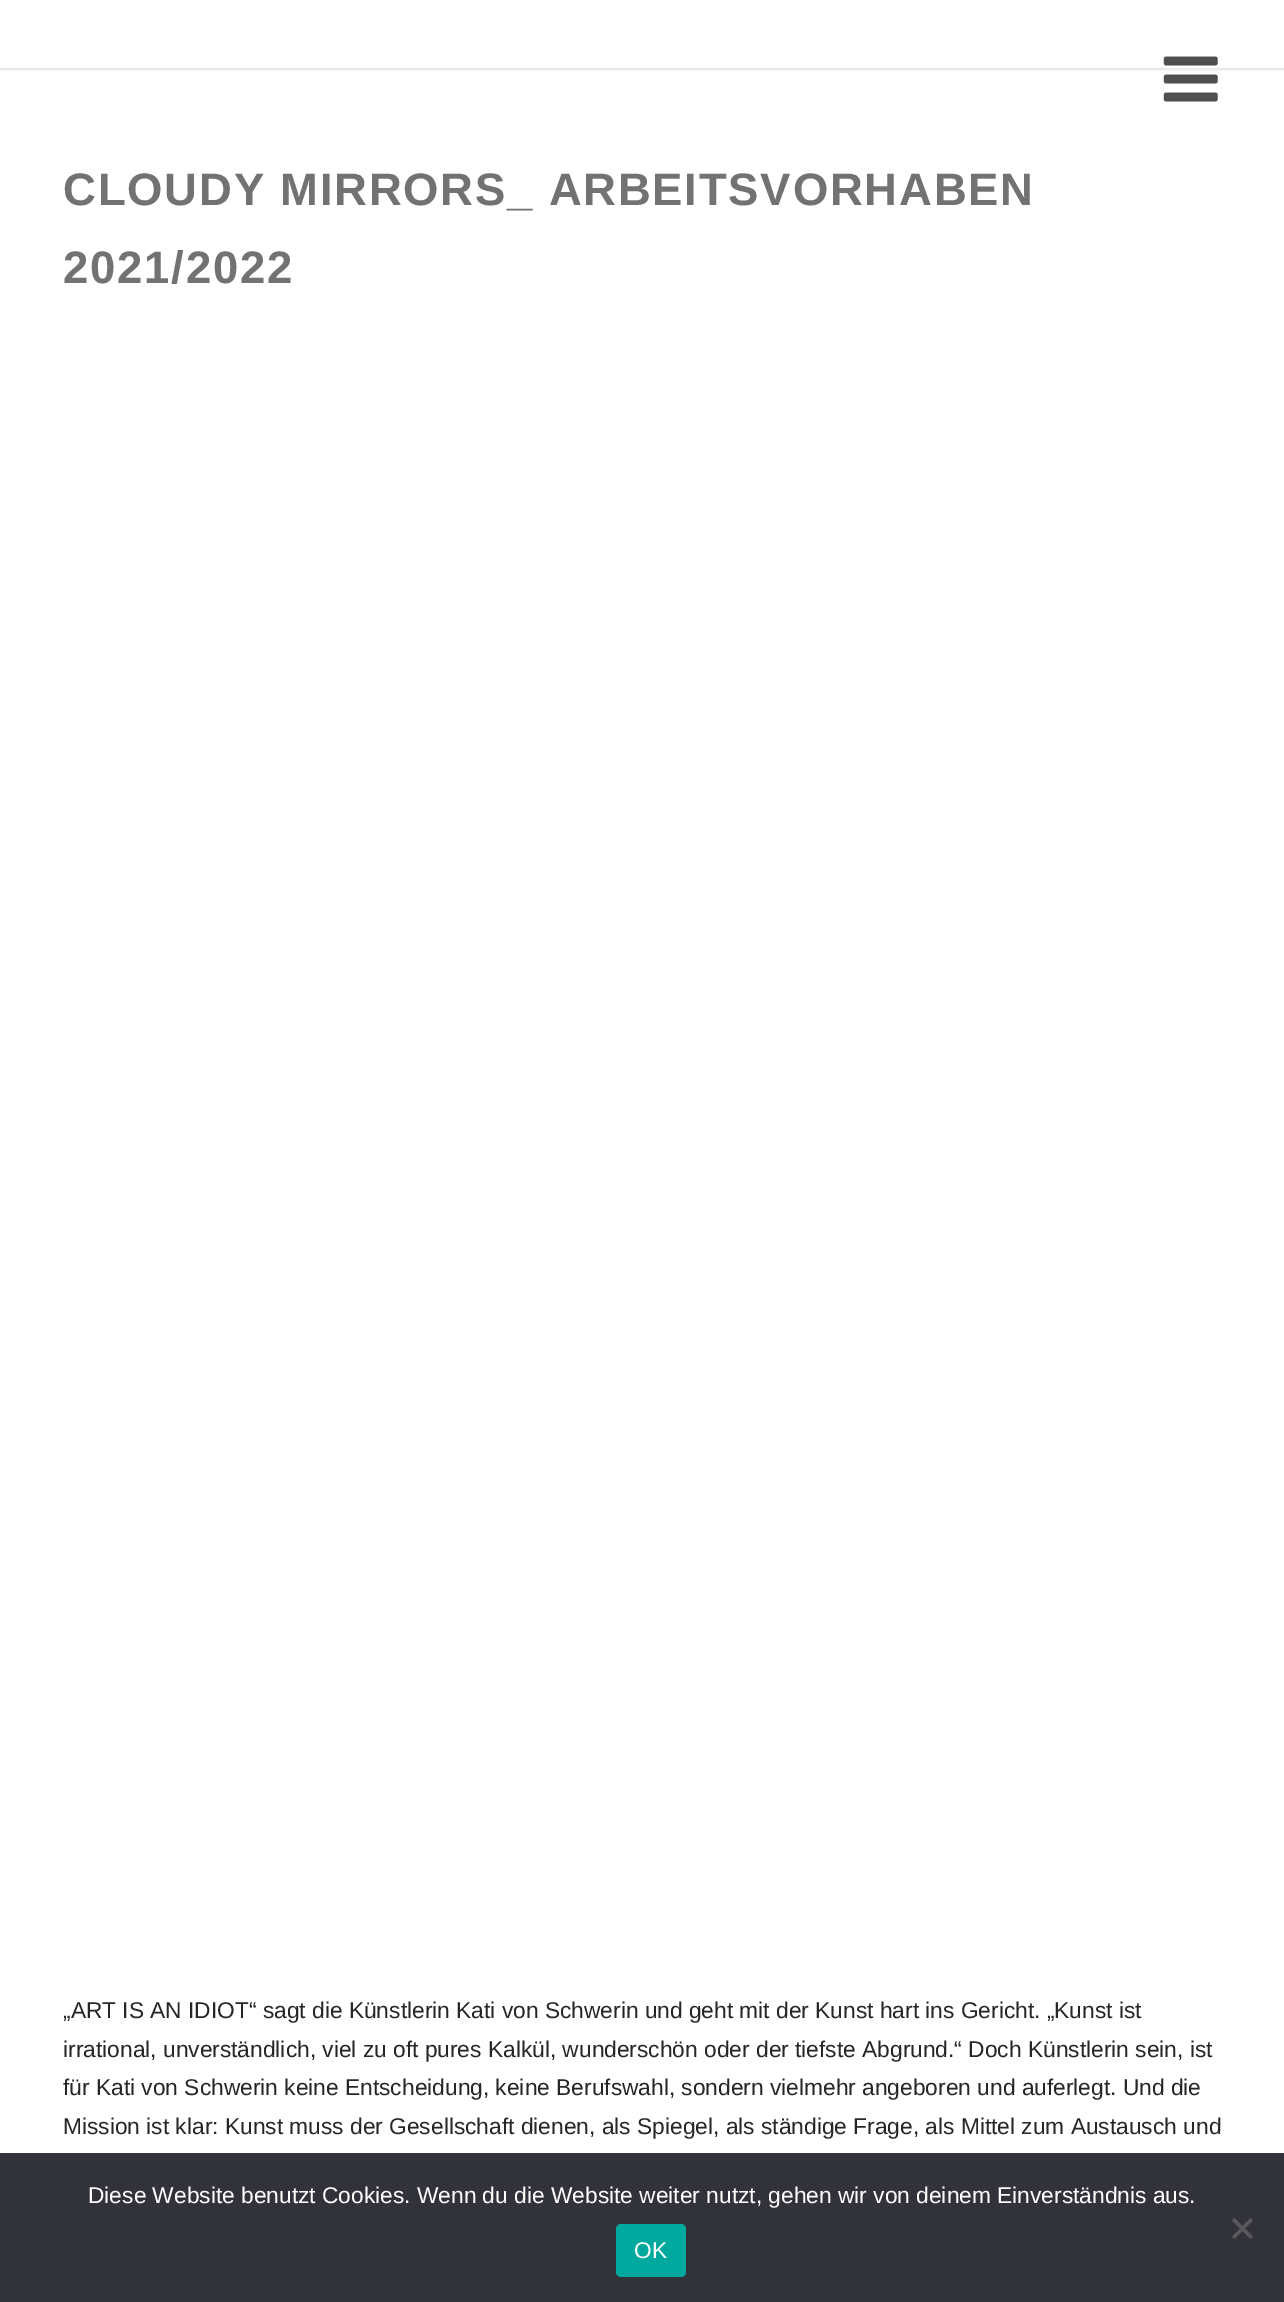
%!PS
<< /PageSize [1284 2302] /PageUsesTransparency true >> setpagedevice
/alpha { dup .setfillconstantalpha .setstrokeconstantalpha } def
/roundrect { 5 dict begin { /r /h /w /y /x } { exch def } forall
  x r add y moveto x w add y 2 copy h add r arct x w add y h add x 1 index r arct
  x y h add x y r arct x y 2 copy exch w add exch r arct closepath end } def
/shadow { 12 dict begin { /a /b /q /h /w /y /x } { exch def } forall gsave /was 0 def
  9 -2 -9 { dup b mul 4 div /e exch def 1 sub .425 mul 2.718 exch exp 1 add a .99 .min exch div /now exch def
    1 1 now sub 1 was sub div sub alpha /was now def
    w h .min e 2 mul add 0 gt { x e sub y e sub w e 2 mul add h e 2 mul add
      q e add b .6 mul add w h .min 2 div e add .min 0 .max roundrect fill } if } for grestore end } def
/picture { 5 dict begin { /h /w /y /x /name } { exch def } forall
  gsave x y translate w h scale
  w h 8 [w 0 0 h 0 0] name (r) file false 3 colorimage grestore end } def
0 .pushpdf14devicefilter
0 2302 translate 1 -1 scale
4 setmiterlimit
1 setgray
0 0 1284 2302 rectfill
gsave
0 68 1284 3 rectclip
0 setgray
0 0 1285 68 0 2.5 0.25 shadow
grestore
(img1.rgb) 1163 56 55 46 picture
/LiberationSans-Bold [45.5 0 0 -45.5 0 0] selectfont
0.447 setgray
63 205 moveto 1.75 0 (CLOUDY MIRRORS_ ARBEITSVORHABEN) ashow
63 283 moveto 1.75 0 (2021/2022) ashow
/LiberationSans-Regular [22.75 0 0 -22.75 0 0] selectfont
0.149 setgray
63 2018 moveto („ART IS AN IDIOT“ sagt die Künstlerin Kati von Schwerin und geht mit der Kunst hart ins Gericht. „Kunst ist) show
63 2057 moveto (irrational, unverständlich, viel zu oft pures Kalkül, wunderschön oder der tiefste Abgrund.“ Doch Künstlerin sein, ist) show
63 2095 moveto (für Kati von Schwerin keine Entscheidung, keine Berufswahl, sondern vielmehr angeboren und auferlegt. Und die) show
63 2134 moveto (Mission ist klar: Kunst muss der Gesellschaft dienen, als Spiegel, als ständige Frage, als Mittel zum Austausch und) show
0.196 0.196 0.227 setrgbcolor
0 2153 1284 149 rectfill
1 setgray
88 2203 moveto (Diese Website benutzt Cookies. Wenn du die Website weiter nutzt, gehen wir von deinem Einverständnis aus.) show
0.349 0.349 0.365 setrgbcolor
newpath 1250.5 2218 moveto 1253 2220.5 lineto 1234.5 2239 lineto 1232 2236.5 lineto closepath fill
newpath 1232 2220.5 moveto 1234.5 2218 lineto 1253 2236.5 lineto 1250.5 2239 lineto closepath fill
0 0.663 0.616 setrgbcolor
616 2224 70 53 5 roundrect fill
1 setgray
634 2258 moveto (OK) show
.poppdf14devicefilter showpage
